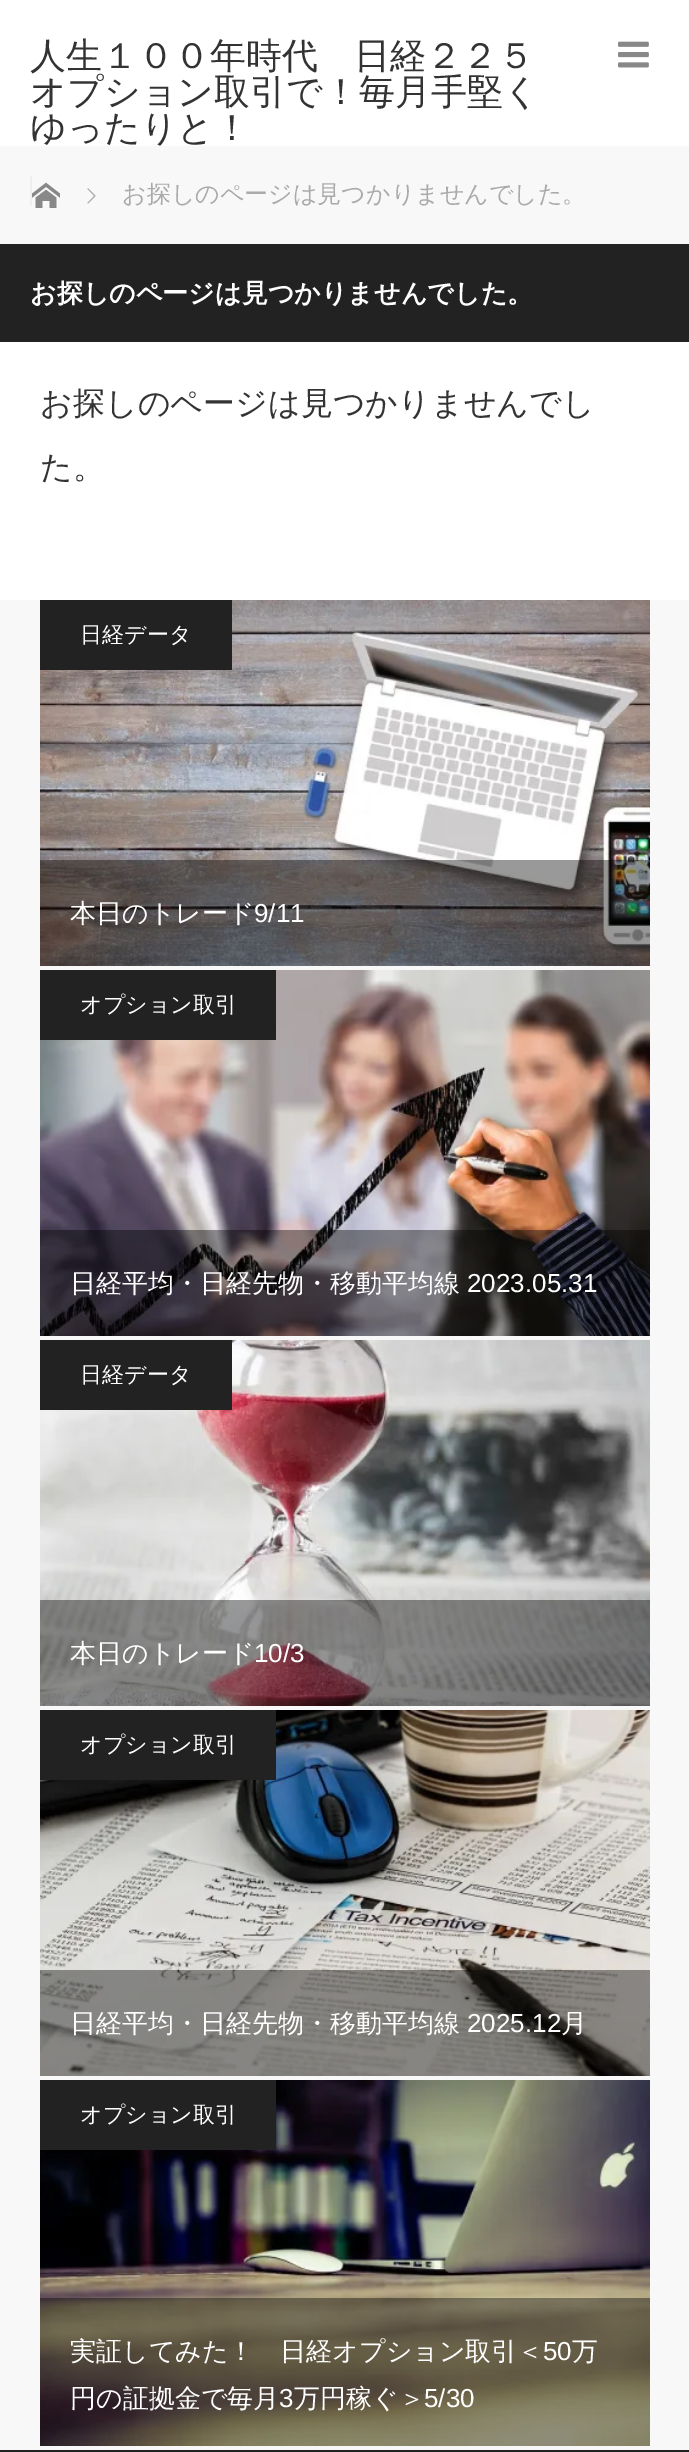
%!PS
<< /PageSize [689 2452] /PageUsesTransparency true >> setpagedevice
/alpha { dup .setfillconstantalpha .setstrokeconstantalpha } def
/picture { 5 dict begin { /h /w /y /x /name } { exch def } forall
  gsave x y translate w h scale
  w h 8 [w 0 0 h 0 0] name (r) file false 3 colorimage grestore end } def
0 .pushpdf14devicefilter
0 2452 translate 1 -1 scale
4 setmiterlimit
0.973 setgray
0 0 689 2452 rectfill
1 setgray
0 0 689 146 rectfill
/WenQuanYiZenHei-Medium [36 0 0 -36 0 0] selectfont
0.2 setgray
30 68 moveto (人生１００年時代　日経２２５) show
30 104 moveto (オプション取引で！毎月手堅く) show
30 140 moveto (ゆったりと！) show
(img1.rgb) 618 41 31 27 picture
0.933 setgray
30 176 2 30 rectfill
(img2.rgb) 32 182 28 26 picture
(img3.rgb) 87 188 9 16 picture
/WenQuanYiZenHei-Medium [24 0 0 -24 0 0] selectfont
0.667 setgray
122 202 moveto (お探しのページは見つかりませんでした。) show
1 setgray
0 342 689 258 rectfill
0.133 setgray
0 244 689 98 rectfill
/WenQuanYiZenHei-Bold [26 0 0 -26 0 0] selectfont
1 setgray
30 302 moveto (お探しのページは見つかりませんでした。) show
/WenQuanYiZenHei-Medium [32 0 0 -32 0 0] selectfont
0.2 setgray
40 414 moveto (お探しのページは見つかりませんでし) show
40 478 moveto (た。) show
(img4.rgb) 40 600 610 366 picture
0.133 setgray
40 600 192 70 rectfill
/WenQuanYiZenHei-Medium [22 0 0 -22 0 0] selectfont
1 setgray
80 642 moveto (日経データ) show
0.4 alpha
0 setgray
40 860 610 106 rectfill
/WenQuanYiZenHei-Medium [26 0 0 -26 0 0] selectfont
1 alpha
1 setgray
70 922 moveto (本日のトレード) show
/LiberationSans-Regular [26 0 0 -26 0 0] selectfont
254 922 moveto (9/11) show
(img5.rgb) 40 970 610 366 picture
0.133 setgray
40 970 236 70 rectfill
/WenQuanYiZenHei-Medium [22 0 0 -22 0 0] selectfont
1 setgray
80 1012 moveto (オプション取引) show
0.4 alpha
0 setgray
40 1230 610 106 rectfill
/WenQuanYiZenHei-Medium [26 0 0 -26 0 0] selectfont
1 alpha
1 setgray
70 1292 moveto (日経平均・日経先物・移動平均線) show
/LiberationSans-Regular [26 0 0 -26 0 0] selectfont
467 1292 moveto (2023.05.31) show
(img6.rgb) 40 1340 610 366 picture
0.133 setgray
40 1340 192 70 rectfill
/WenQuanYiZenHei-Medium [22 0 0 -22 0 0] selectfont
1 setgray
80 1382 moveto (日経データ) show
0.4 alpha
0 setgray
40 1600 610 106 rectfill
/WenQuanYiZenHei-Medium [26 0 0 -26 0 0] selectfont
1 alpha
1 setgray
70 1662 moveto (本日のトレード) show
/LiberationSans-Regular [26 0 0 -26 0 0] selectfont
254 1662 moveto (10/3) show
(img7.rgb) 40 1710 610 366 picture
0.133 setgray
40 1710 236 70 rectfill
/WenQuanYiZenHei-Medium [22 0 0 -22 0 0] selectfont
1 setgray
80 1752 moveto (オプション取引) show
0.4 alpha
0 setgray
40 1970 610 106 rectfill
/WenQuanYiZenHei-Medium [26 0 0 -26 0 0] selectfont
1 alpha
1 setgray
70 2032 moveto (日経平均・日経先物・移動平均線) show
/LiberationSans-Regular [26 0 0 -26 0 0] selectfont
467 2032 moveto (2025.12) show
/WenQuanYiZenHei-Medium [26 0 0 -26 0 0] selectfont
561 2032 moveto (月) show
(img8.rgb) 40 2080 610 366 picture
0.133 setgray
40 2080 236 70 rectfill
/WenQuanYiZenHei-Medium [22 0 0 -22 0 0] selectfont
1 setgray
80 2122 moveto (オプション取引) show
0.4 alpha
0 setgray
40 2298 610 148 rectfill
/WenQuanYiZenHei-Medium [26 0 0 -26 0 0] selectfont
1 alpha
1 setgray
70 2360 moveto (実証してみた！　日経オプション取引＜) show
/LiberationSans-Regular [26 0 0 -26 0 0] selectfont
543 2360 moveto (50) show
/WenQuanYiZenHei-Medium [26 0 0 -26 0 0] selectfont
572 2360 moveto (万) show
70 2407 moveto (円の証拠金で毎月) show
/LiberationSans-Regular [26 0 0 -26 0 0] selectfont
279 2407 moveto (3) show
/WenQuanYiZenHei-Medium [26 0 0 -26 0 0] selectfont
294 2407 moveto (万円稼ぐ＞) show
/LiberationSans-Regular [26 0 0 -26 0 0] selectfont
424 2407 moveto (5/30) show
0.133 setgray
0 2450 689 2 rectfill
.poppdf14devicefilter showpage
